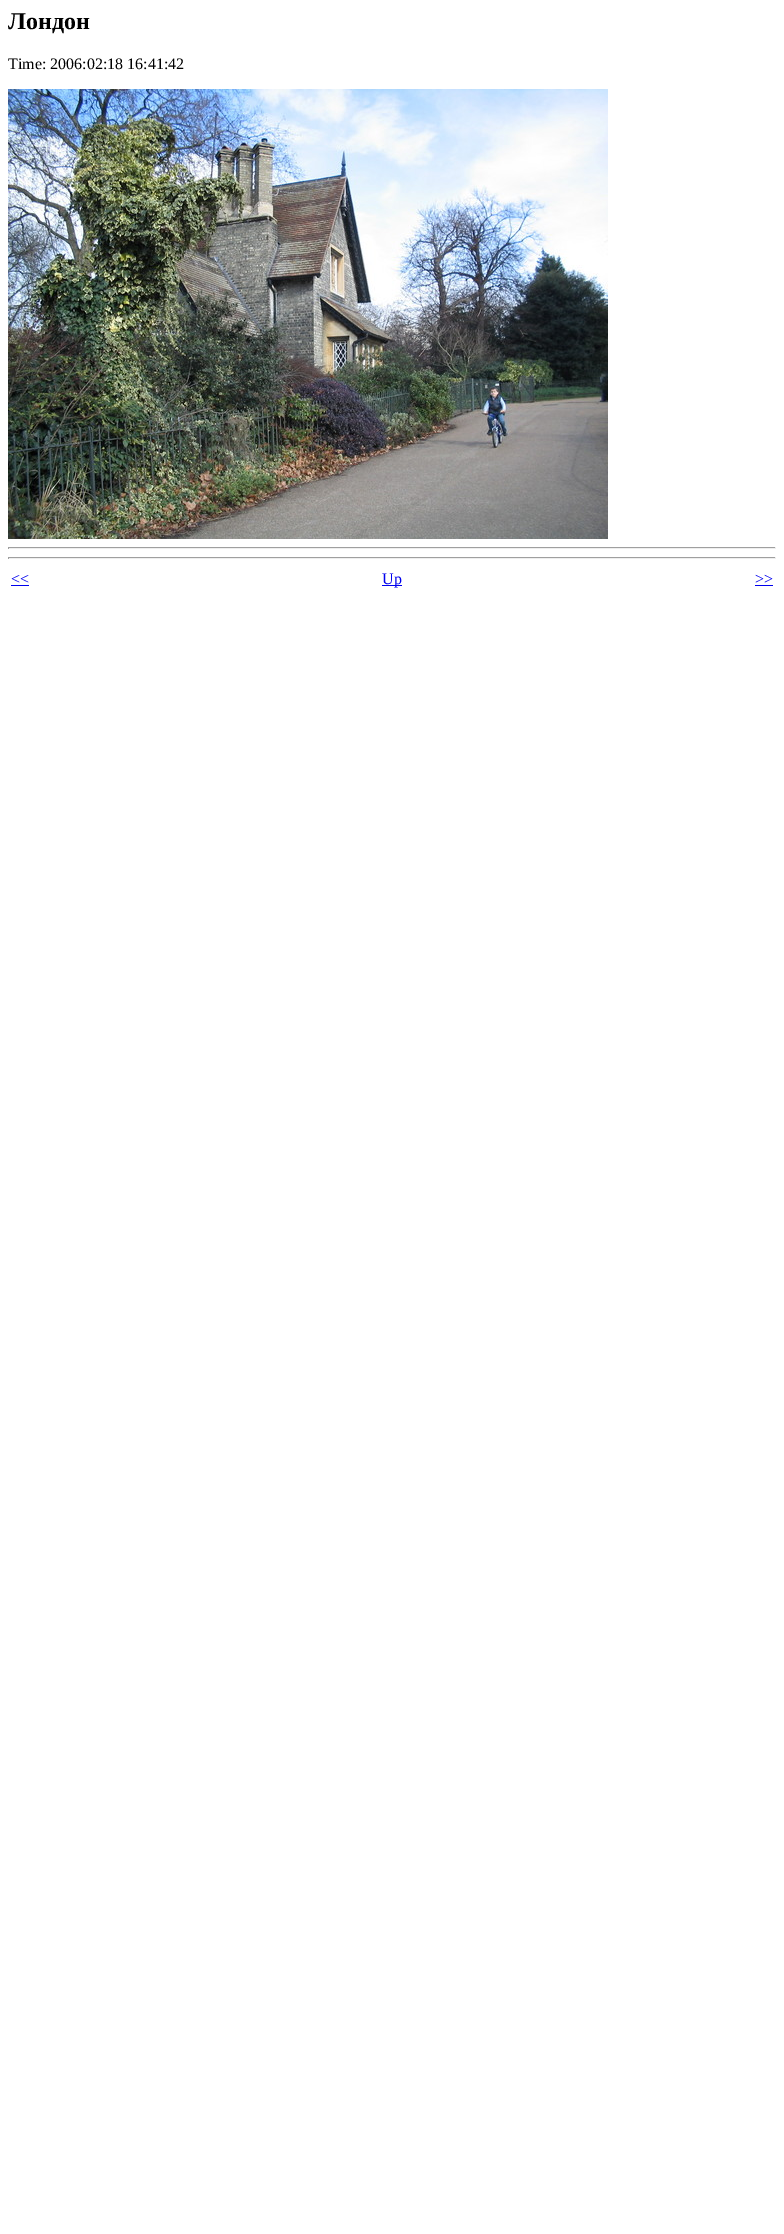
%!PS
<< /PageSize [784 2234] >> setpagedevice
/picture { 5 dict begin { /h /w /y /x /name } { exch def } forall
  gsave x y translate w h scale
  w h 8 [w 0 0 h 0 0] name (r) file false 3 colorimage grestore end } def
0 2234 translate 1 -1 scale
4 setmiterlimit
1 setgray
0 0 784 2234 rectfill
/LiberationSerif-Bold [24 0 0 -24 0 0] selectfont
0 setgray
8 29 moveto (Лондон) show
/LiberationSerif-Regular [16 0 0 -16 0 0] selectfont
8 69 moveto (Time: 2006:02:18 16:41:42) show
(img1.rgb) 8 89 600 450 picture
0.624 setgray
8 547 768 1 rectfill
0.933 setgray
775 547 1 2 rectfill
8 548 768 1 rectfill
0.624 setgray
8 547 1 2 rectfill
8 557 768 1 rectfill
0.933 setgray
775 557 1 2 rectfill
8 558 768 1 rectfill
0.624 setgray
8 557 1 2 rectfill
0 0 0.933 setrgbcolor
11 584 moveto (<<) show
11 585 18 1 rectfill
382 585 20 1 rectfill
382 584 moveto (Up) show
755 584 moveto (>>) show
755 585 18 1 rectfill
showpage
